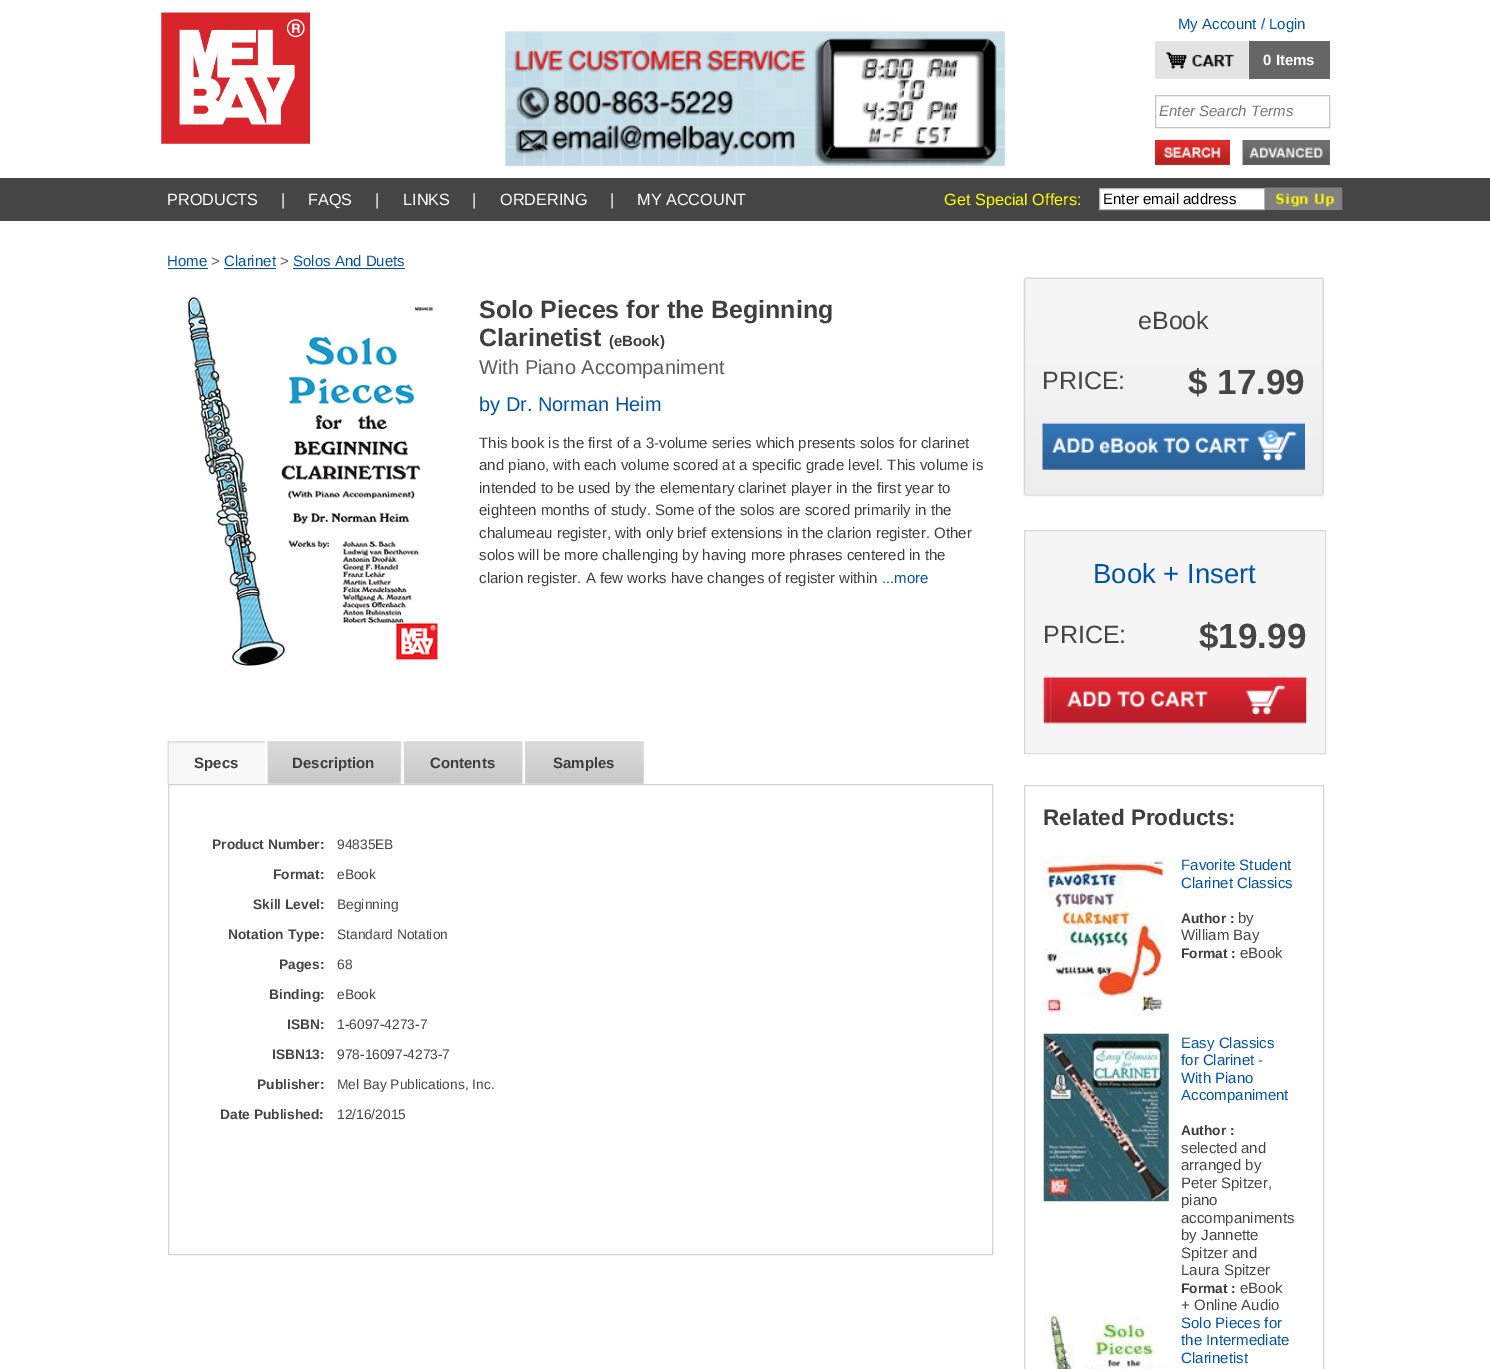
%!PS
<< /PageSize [1490 1369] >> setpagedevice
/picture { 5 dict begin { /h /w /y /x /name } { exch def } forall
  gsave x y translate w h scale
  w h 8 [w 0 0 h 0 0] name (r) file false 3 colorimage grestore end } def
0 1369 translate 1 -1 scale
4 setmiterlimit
1 setgray
0 0 1490 1369 rectfill
(img1.rgb) 161 12 149 132 picture
(img2.rgb) 505 31 500 136 picture
/LiberationSans-Regular [15 0 0 -15 0 0] selectfont
0 0.329 0.651 setrgbcolor
1178 29 moveto (My Account / Login) show
(img3.rgb) 1155 41 94 38 picture
0.4 setgray
1249 41 81 38 rectfill
/LiberationSans-Bold [15 0 0 -15 0 0] selectfont
1 setgray
1263 65 moveto (0 Items) show
0.773 setgray
1155.5 95.5 174 32 rectstroke
/LiberationSans-Italic [15 0 0 -15 0 0] selectfont
0.463 setgray
1159 116 moveto (Enter Search Terms) show
(img4.rgb) 1155 140 75 25 picture
(img5.rgb) 1242 140 88 25 picture
0.271 setgray
0 178 1490 43 rectfill
/LiberationSans-Regular [16.25 0 0 -16.25 0 0] selectfont
1 setgray
167 205 moveto (PRODUCTS) show
281 205 moveto (|) show
308 205 moveto (FAQS) show
375 205 moveto (|) show
403 205 moveto (LINKS) show
472 205 moveto (|) show
500 205 moveto (ORDERING) show
610 205 moveto (|) show
637 205 moveto (MY ACCOUNT) show
1 1 0 setrgbcolor
944 205 moveto (Get Special Offers:) show
1 setgray
newpath 1099.5 188.5 moveto 1264.5 188.5 lineto 1264.5 209.5 lineto 1099.5 209.5 lineto closepath gsave fill grestore
0.698 setgray
stroke
/LiberationSans-Regular [15 0 0 -15 0 0] selectfont
0 setgray
1103 204 moveto (Enter email address) show
(img6.rgb) 1265 187 78 23 picture
0 0.329 0.651 setrgbcolor
167 266 moveto (Home) show
168 268 40 1 rectfill
0.361 setgray
211 266 moveto (>) show
0 0.329 0.651 setrgbcolor
224 266 moveto (Clarinet) show
224 268 52 1 rectfill
0.361 setgray
280 266 moveto (>) show
0 0.329 0.651 setrgbcolor
293 266 moveto (Solos And Duets) show
293 268 112 1 rectfill
(img7.rgb) 188 296 250 370 picture
/LiberationSans-Bold [25 0 0 -25 0 0] selectfont
0.243 setgray
479 318 moveto (Solo Pieces for the Beginning) show
479 346 moveto (Clarinetist) show
/LiberationSans-Bold [15 0 0 -15 0 0] selectfont
609 346 moveto (\(eBook\)) show
/LiberationSans-Regular [20 0 0 -20 0 0] selectfont
0.361 setgray
479 374 moveto (With Piano Accompaniment) show
0 0.329 0.651 setrgbcolor
479 411 moveto (by Dr. Norman Heim) show
/LiberationSans-Regular [15 0 0 -15 0 0] selectfont
0.243 setgray
479 448 moveto (This book is the first of a 3-volume series which presents solos for clarinet) show
479 470 moveto (and piano, with each volume scored at a specific grade level. This volume is) show
479 493 moveto (intended to be used by the elementary clarinet player in the first year to) show
479 515 moveto (eighteen months of study. Some of the solos are scored primarily in the) show
479 538 moveto (chalumeau register, with only brief extensions in the clarion register. Other) show
479 560 moveto (solos will be more challenging by having more phrases centered in the) show
479 583 moveto (clarion register. A few works have changes of register within) show
0 0.329 0.651 setrgbcolor
882 583 moveto (...more) show
(img8.rgb) 167 741 98 43 picture
/LiberationSans-Bold [15 0 0 -15 0 0] selectfont
0.243 setgray
194 768 moveto (Specs) show
(img9.rgb) 267 741 135 43 picture
292 768 moveto (Description) show
(img10.rgb) 403 741 120 43 picture
430 768 moveto (Contents) show
(img11.rgb) 525 741 119 43 picture
553 768 moveto (Samples) show
0.827 setgray
168.5 784.5 824 470 rectstroke
/LiberationSans-Bold [13.75 0 0 -13.75 0 0] selectfont
0.271 setgray
212 849 moveto (Product Number:) show
/LiberationSans-Regular [13.75 0 0 -13.75 0 0] selectfont
337 849 moveto (94835EB) show
/LiberationSans-Bold [13.75 0 0 -13.75 0 0] selectfont
273 879 moveto (Format:) show
/LiberationSans-Regular [13.75 0 0 -13.75 0 0] selectfont
337 879 moveto (eBook) show
/LiberationSans-Bold [13.75 0 0 -13.75 0 0] selectfont
253 909 moveto (Skill Level:) show
/LiberationSans-Regular [13.75 0 0 -13.75 0 0] selectfont
337 909 moveto (Beginning) show
/LiberationSans-Bold [13.75 0 0 -13.75 0 0] selectfont
228 939 moveto (Notation Type:) show
/LiberationSans-Regular [13.75 0 0 -13.75 0 0] selectfont
337 939 moveto (Standard Notation) show
/LiberationSans-Bold [13.75 0 0 -13.75 0 0] selectfont
279 969 moveto (Pages:) show
/LiberationSans-Regular [13.75 0 0 -13.75 0 0] selectfont
337 969 moveto (68) show
/LiberationSans-Bold [13.75 0 0 -13.75 0 0] selectfont
269 999 moveto (Binding:) show
/LiberationSans-Regular [13.75 0 0 -13.75 0 0] selectfont
337 999 moveto (eBook) show
/LiberationSans-Bold [13.75 0 0 -13.75 0 0] selectfont
287 1029 moveto (ISBN:) show
/LiberationSans-Regular [13.75 0 0 -13.75 0 0] selectfont
337 1029 moveto (1-6097-4273-7) show
/LiberationSans-Bold [13.75 0 0 -13.75 0 0] selectfont
272 1059 moveto (ISBN13:) show
/LiberationSans-Regular [13.75 0 0 -13.75 0 0] selectfont
337 1059 moveto (978-16097-4273-7) show
/LiberationSans-Bold [13.75 0 0 -13.75 0 0] selectfont
257 1089 moveto (Publisher:) show
/LiberationSans-Regular [13.75 0 0 -13.75 0 0] selectfont
337 1089 moveto (Mel Bay Publications, Inc.) show
/LiberationSans-Bold [13.75 0 0 -13.75 0 0] selectfont
220 1119 moveto (Date Published:) show
/LiberationSans-Regular [13.75 0 0 -13.75 0 0] selectfont
337 1119 moveto (12/16/2015) show
(img12.rgb) 1023 277 301 220 picture
/LiberationSans-Regular [25 0 0 -25 0 0] selectfont
1138 329 moveto (eBook) show
1042 389 moveto (PRICE:) show
/LiberationSans-Bold [35 0 0 -35 0 0] selectfont
1188 394 moveto ($ 17.99) show
(img13.rgb) 1042 422 263 48 picture
0.961 setgray
newpath 1024.5 530.5 moveto 1325.5 530.5 lineto 1325.5 753.5 lineto 1024.5 753.5 lineto closepath gsave fill grestore
0.855 setgray
stroke
/LiberationSans-Regular [27.5 0 0 -27.5 0 0] selectfont
0 0.329 0.651 setrgbcolor
1093 583 moveto (Book + Insert) show
/LiberationSans-Regular [25 0 0 -25 0 0] selectfont
0.271 setgray
1043 643 moveto (PRICE:) show
/LiberationSans-Bold [35 0 0 -35 0 0] selectfont
1199 648 moveto ($19.99) show
(img14.rgb) 1043 676 264 48 picture
0.827 setgray
1024.5 785.5 299 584 rectstroke
/LiberationSans-Bold [22.5 0 0 -22.5 0 0] selectfont
0.243 setgray
1043 825 moveto (Related Products:) show
(img15.rgb) 1043 856 122 161 picture
/LiberationSans-Regular [15 0 0 -15 0 0] selectfont
0 0.329 0.651 setrgbcolor
1181 870 moveto (Favorite Student) show
1181 888 moveto (Clarinet Classics) show
/LiberationSans-Bold [13.75 0 0 -13.75 0 0] selectfont
0.243 setgray
1181 923 moveto (Author :) show
/LiberationSans-Regular [15 0 0 -15 0 0] selectfont
0.271 setgray
1238 923 moveto (by) show
1181 940 moveto (William Bay) show
/LiberationSans-Bold [13.75 0 0 -13.75 0 0] selectfont
0.243 setgray
1181 958 moveto (Format :) show
/LiberationSans-Regular [15 0 0 -15 0 0] selectfont
0.271 setgray
1240 958 moveto (eBook) show
(img16.rgb) 1043 1033 126 169 picture
0 0.329 0.651 setrgbcolor
1181 1048 moveto (Easy Classics) show
1181 1065 moveto (for Clarinet -) show
1181 1083 moveto (With Piano) show
1181 1100 moveto (Accompaniment) show
/LiberationSans-Bold [13.75 0 0 -13.75 0 0] selectfont
0.243 setgray
1181 1135 moveto (Author :) show
/LiberationSans-Regular [15 0 0 -15 0 0] selectfont
0.271 setgray
1181 1153 moveto (selected and) show
1181 1170 moveto (arranged by) show
1181 1188 moveto (Peter Spitzer,) show
1181 1205 moveto (piano) show
1181 1223 moveto (accompaniments) show
1181 1240 moveto (by Jannette) show
1181 1258 moveto (Spitzer and) show
1181 1275 moveto (Laura Spitzer) show
/LiberationSans-Bold [13.75 0 0 -13.75 0 0] selectfont
0.243 setgray
1181 1293 moveto (Format :) show
/LiberationSans-Regular [15 0 0 -15 0 0] selectfont
0.271 setgray
1240 1293 moveto (eBook) show
1181 1310 moveto (+ Online Audio) show
(img17.rgb) 1044 1314 120 55 picture
0 0.329 0.651 setrgbcolor
1181 1328 moveto (Solo Pieces for) show
1181 1345 moveto (the Intermediate) show
1181 1363 moveto (Clarinetist) show
showpage
